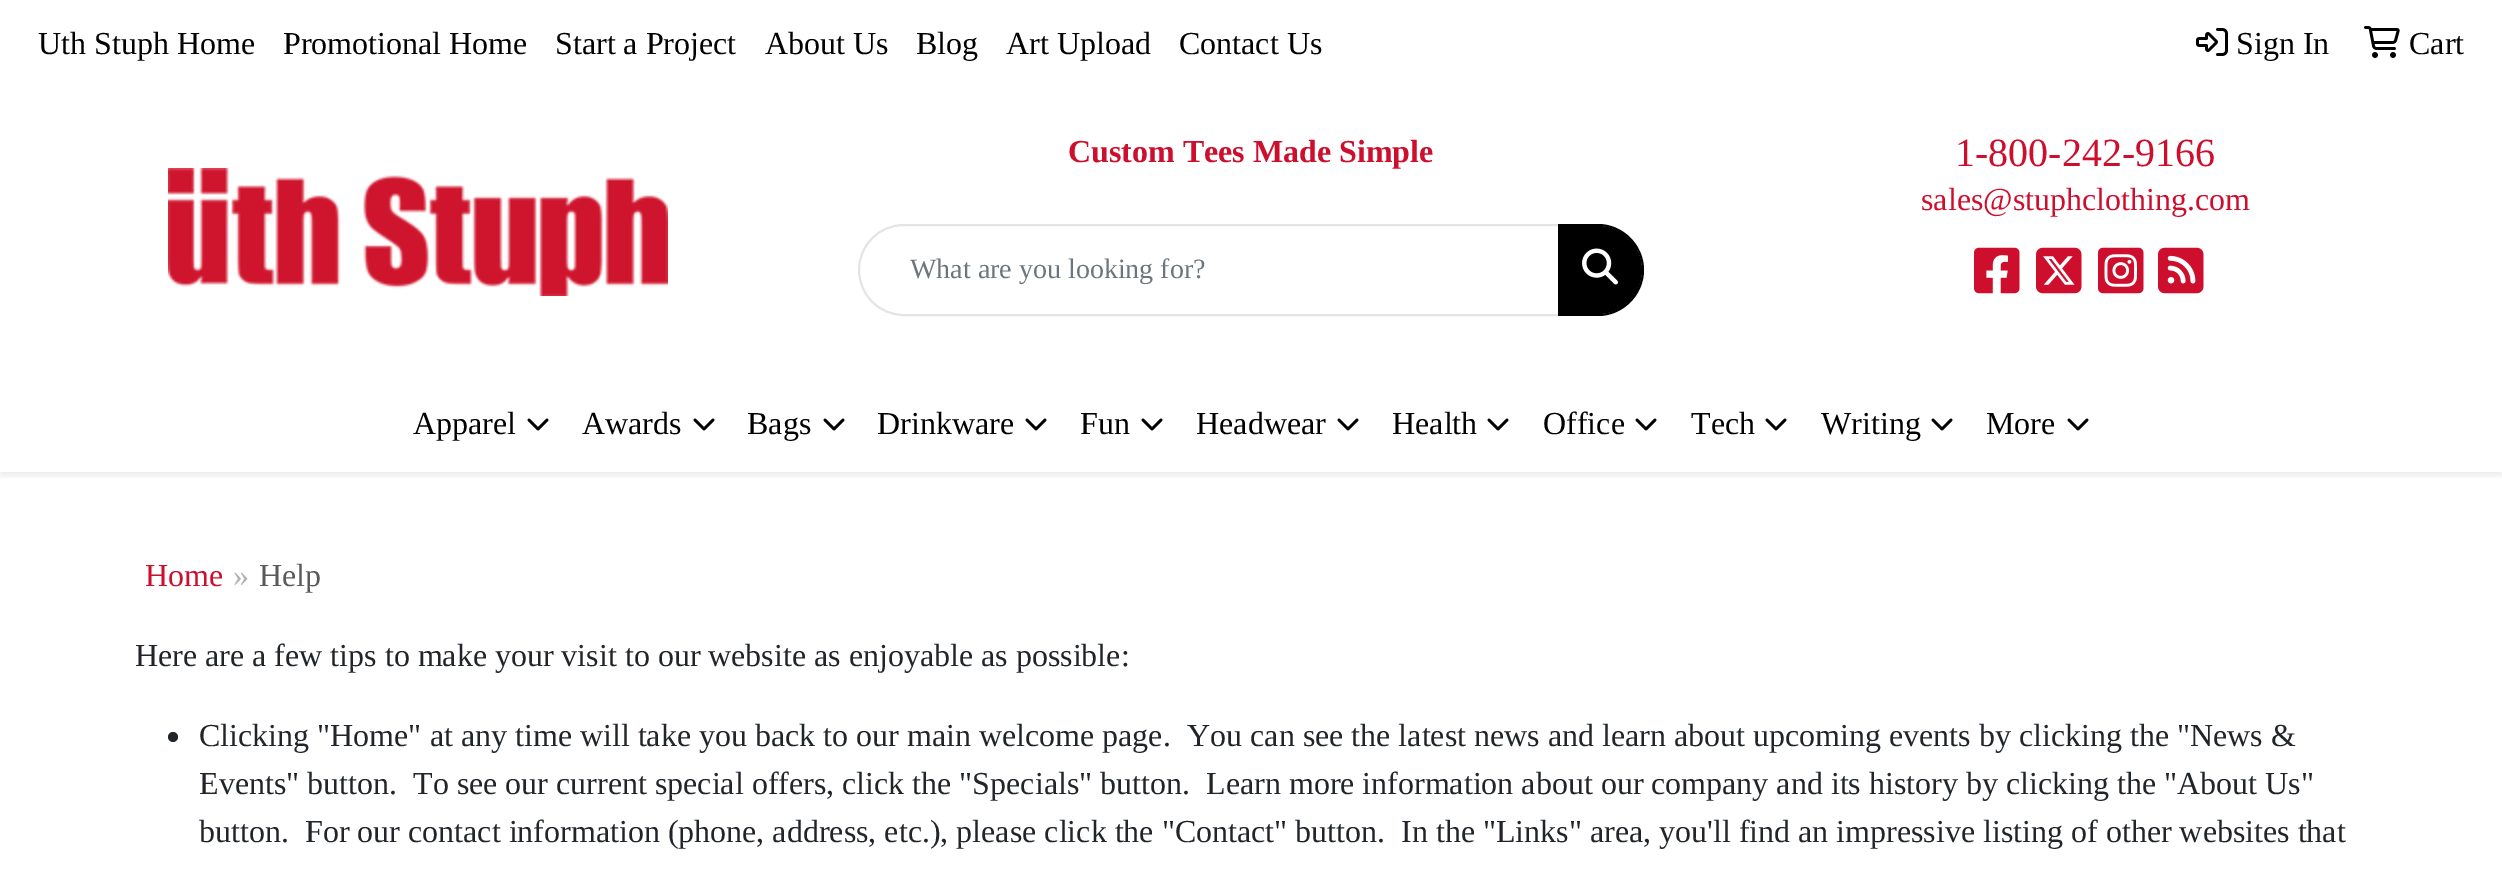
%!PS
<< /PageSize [2502 870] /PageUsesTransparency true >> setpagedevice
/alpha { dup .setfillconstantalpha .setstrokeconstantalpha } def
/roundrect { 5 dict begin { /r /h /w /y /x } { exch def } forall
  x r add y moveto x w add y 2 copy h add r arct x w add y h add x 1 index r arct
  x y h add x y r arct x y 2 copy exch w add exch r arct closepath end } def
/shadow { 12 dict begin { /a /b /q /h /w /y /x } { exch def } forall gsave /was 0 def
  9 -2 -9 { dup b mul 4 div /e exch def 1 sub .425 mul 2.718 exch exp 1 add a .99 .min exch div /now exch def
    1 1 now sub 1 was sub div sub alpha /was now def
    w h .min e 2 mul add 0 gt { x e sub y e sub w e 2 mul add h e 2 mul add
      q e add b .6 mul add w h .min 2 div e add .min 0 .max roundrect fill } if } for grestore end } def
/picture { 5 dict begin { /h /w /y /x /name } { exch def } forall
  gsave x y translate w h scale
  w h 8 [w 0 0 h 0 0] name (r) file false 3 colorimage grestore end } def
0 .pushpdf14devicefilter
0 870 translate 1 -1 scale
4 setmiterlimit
1 setgray
0 0 2502 870 rectfill
/LiberationSerif-Regular [32 0 0 -32 0 0] selectfont
0 setgray
38 54 moveto (Uth Stuph Home) show
283 54 moveto (Promotional Home) show
555 54 moveto (Start a Project) show
765 54 moveto (About Us) show
916 54 moveto (Blog) show
1006 54 moveto (Art Upload) show
1179 54 moveto (Contact Us) show
(img1.rgb) 2196 28 32 28 picture
2236 54 moveto (Sign In) show
(img2.rgb) 2364 26 36 32 picture
2409 54 moveto (Cart) show
(img3.rgb) 168 168 500 128 picture
/LiberationSerif-Bold [32 0 0 -32 0 0] selectfont
0.808 0.055 0.176 setrgbcolor
1068 162 moveto (Custom Tees Made Simple) show
0.894 setgray
2 setlinewidth
newpath 904 225 moveto 1559 225 lineto 1559 315 lineto 904 315 lineto 879 315 859 295 859 270 curveto 859 245 879 225 904 225 curveto closepath stroke
/LiberationSerif-Regular [28 0 0 -28 0 0] selectfont
0.424 0.459 0.49 setrgbcolor
910 278 moveto (What are you looking for?) show
0 setgray
newpath 1558 226 moveto 1598 226 lineto 1622.5 226 1642 245.5 1642 270 curveto 1642 294.5 1622.5 314 1598 314 curveto 1558 314 lineto closepath fill
newpath 1558 224 moveto 1598 224 lineto 1623 224 1644 245 1644 270 curveto 1644 295 1623 316 1598 316 curveto 1558 316 lineto closepath 1558 226 moveto 1598 226 lineto 1622 226 1642 246 1642 270 curveto 1642 294 1622 314 1598 314 curveto 1558 314 lineto closepath eofill
(img4.rgb) 1582 248 36 37 picture
/LiberationSerif-Regular [40 0 0 -40 0 0] selectfont
0.808 0.055 0.176 setrgbcolor
1955 166 moveto (1-800-242-9166) show
/LiberationSerif-Regular [32 0 0 -32 0 0] selectfont
1921 210 moveto (sales@stuphclothing.com) show
(img5.rgb) 1974 247 46 47 picture
(img6.rgb) 2036 247 46 47 picture
(img7.rgb) 2098 247 46 47 picture
(img8.rgb) 2158 247 46 47 picture
gsave
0 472 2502 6 rectclip
0 setgray
0 380 2502 96 0 4 0.07 shadow
grestore
0 setgray
413 434 moveto (Apparel) show
(img9.rgb) 527 418 22 13 picture
582 434 moveto (Awards) show
(img9.rgb) 693 418 22 13 picture
747 434 moveto (Bags) show
(img9.rgb) 823 418 22 13 picture
877 434 moveto (Drinkware) show
(img9.rgb) 1025 418 22 13 picture
1080 434 moveto (Fun) show
(img9.rgb) 1141 418 22 13 picture
1196 434 moveto (Headwear) show
(img9.rgb) 1337 418 22 13 picture
1392 434 moveto (Health) show
(img9.rgb) 1487 418 22 13 picture
1543 434 moveto (Office) show
(img9.rgb) 1635 418 22 13 picture
1691 434 moveto (Tech) show
(img9.rgb) 1765 418 22 13 picture
1821 434 moveto (Writing) show
(img9.rgb) 1931 418 22 13 picture
1986 434 moveto (More) show
(img9.rgb) 2067 418 22 13 picture
0.808 0.055 0.176 setrgbcolor
145 586 moveto (Home) show
0.698 0.694 0.694 setrgbcolor
233 586 moveto (») show
0.357 0.353 0.353 setrgbcolor
259 586 moveto (Help) show
0.129 0.145 0.161 setrgbcolor
135 666 moveto (Here are a few tips to make your visit to our website as enjoyable as possible:) show
newpath 173 737 5 0 360 arc closepath fill
199 746 moveto (Clicking "Home" at any time will take you back to our main welcome page.) show
1187 746 moveto (You can see the latest news and learn about upcoming events by clicking the "News &) show
199 794 moveto (Events" button.) show
413 794 moveto (To see our current special offers, click the "Specials" button.) show
1206 794 moveto (Learn more information about our company and its history by clicking the "About Us") show
199 842 moveto (button.) show
305 842 moveto (For our contact information \(phone, address, etc.\), please click the "Contact" button.) show
1401 842 moveto (In the "Links" area, you'll find an impressive listing of other websites that) show
.poppdf14devicefilter showpage
